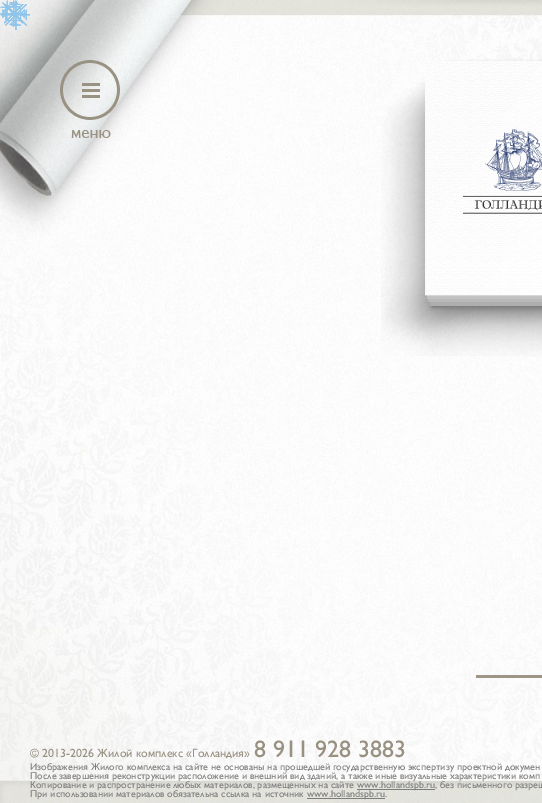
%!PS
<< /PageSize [542 803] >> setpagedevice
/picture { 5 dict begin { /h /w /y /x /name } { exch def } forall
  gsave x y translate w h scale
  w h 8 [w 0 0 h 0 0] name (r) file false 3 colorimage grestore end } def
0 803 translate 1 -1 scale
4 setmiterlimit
1 setgray
0 0 542 803 rectfill
(img45.rgb) 0 0 542 803 picture
(img28.rgb) 1 1 13 13 picture
(img1.rgb) 0 0 14 14 picture
(img2.rgb) 0 0 31 30 picture
(img3.rgb) 0 0 27 27 picture
(img27.rgb) 0 1 26 26 picture
(img4.rgb) 0 0 27 27 picture
(img5.rgb) 0 0 14 14 picture
(img29.rgb) 1 1 12 12 picture
(img6.rgb) 0 0 30 30 picture
(img7.rgb) 0 0 27 27 picture
(img8.rgb) 0 0 13 13 picture
(img26.rgb) 4 0 19 27 picture
(img9.rgb) 0 0 27 27 picture
(img30.rgb) 1 1 9 7 picture
(img10.rgb) 0 0 24 27 picture
(img11.rgb) 0 0 24 24 picture
(img12.rgb) 0 0 30 30 picture
(img13.rgb) 0 0 13 13 picture
(img14.rgb) 0 0 30 30 picture
(img15.rgb) 0 0 25 27 picture
(img31.rgb) 1 1 29 29 picture
(img16.rgb) 0 0 11 11 picture
(img17.rgb) 0 0 25 25 picture
(img18.rgb) 0 0 30 30 picture
(img19.rgb) 0 0 25 25 picture
(img35.rgb) 4 4 20 20 picture
(img33.rgb) 2 2 23 23 picture
(img20.rgb) 0 0 10 10 picture
(img32.rgb) 5 1 12 25 picture
(img21.rgb) 0 0 10 11 picture
(img36.rgb) 7 7 11 11 picture
(img22.rgb) 0 0 30 30 picture
(img23.rgb) 0 0 30 30 picture
(img24.rgb) 0 0 10 10 picture
(img34.rgb) 2 2 23 23 picture
(img25.rgb) 0 0 8 10 picture
(img43.rgb) 4 4 20 23 picture
0.702 0.835 0.925 setrgbcolor
17 7 1 1 rectfill
(img44.rgb) 4 4 20 20 picture
(img37.rgb) 0 0 10 8 picture
(img40.rgb) 1 0 22 25 picture
(img42.rgb) 2 2 23 23 picture
(img38.rgb) 0 0 31 30 picture
(img39.rgb) 0 0 30 30 picture
(img41.rgb) 15 0 15 16 picture
(img46.rgb) 381 59 161 297 picture
0.616 0.584 0.529 setrgbcolor
476 675 66 3 rectfill
(img47.rgb) 60 60 60 78 picture
/GillSans-Regular [12 0 0 -12 0 0] selectfont
0.596 0.565 0.506 setrgbcolor
30 757 moveto (© 2013-2026 Жилой комплекс «Голландия») show
/GillSans-Regular [24 0 0 -24 0 0] selectfont
254 757 moveto (8 911 928 3883) show
/GillSans-Regular [10 0 0 -10 0 0] selectfont
0.486 setgray
30 770 moveto (Изображения Жилого комплекса на сайте не основаны на прошедшей государственную экспертизу проектной докумен) show
30 779 moveto (После завершения реконструкции расположение и внешний вид зданий, а также иные визуальные характеристики комп) show
30 788 moveto (Копирование и распространение любых материалов, размещенных на сайте) show
357 789 78 1 rectfill
357 788 moveto (www.hollandspb.ru, без письменного разреш) show
30 797 moveto (При использовании материалов обязательна ссылка на источник) show
307 798 78 1 rectfill
307 797 moveto (www.hollandspb.ru.) show
showpage
